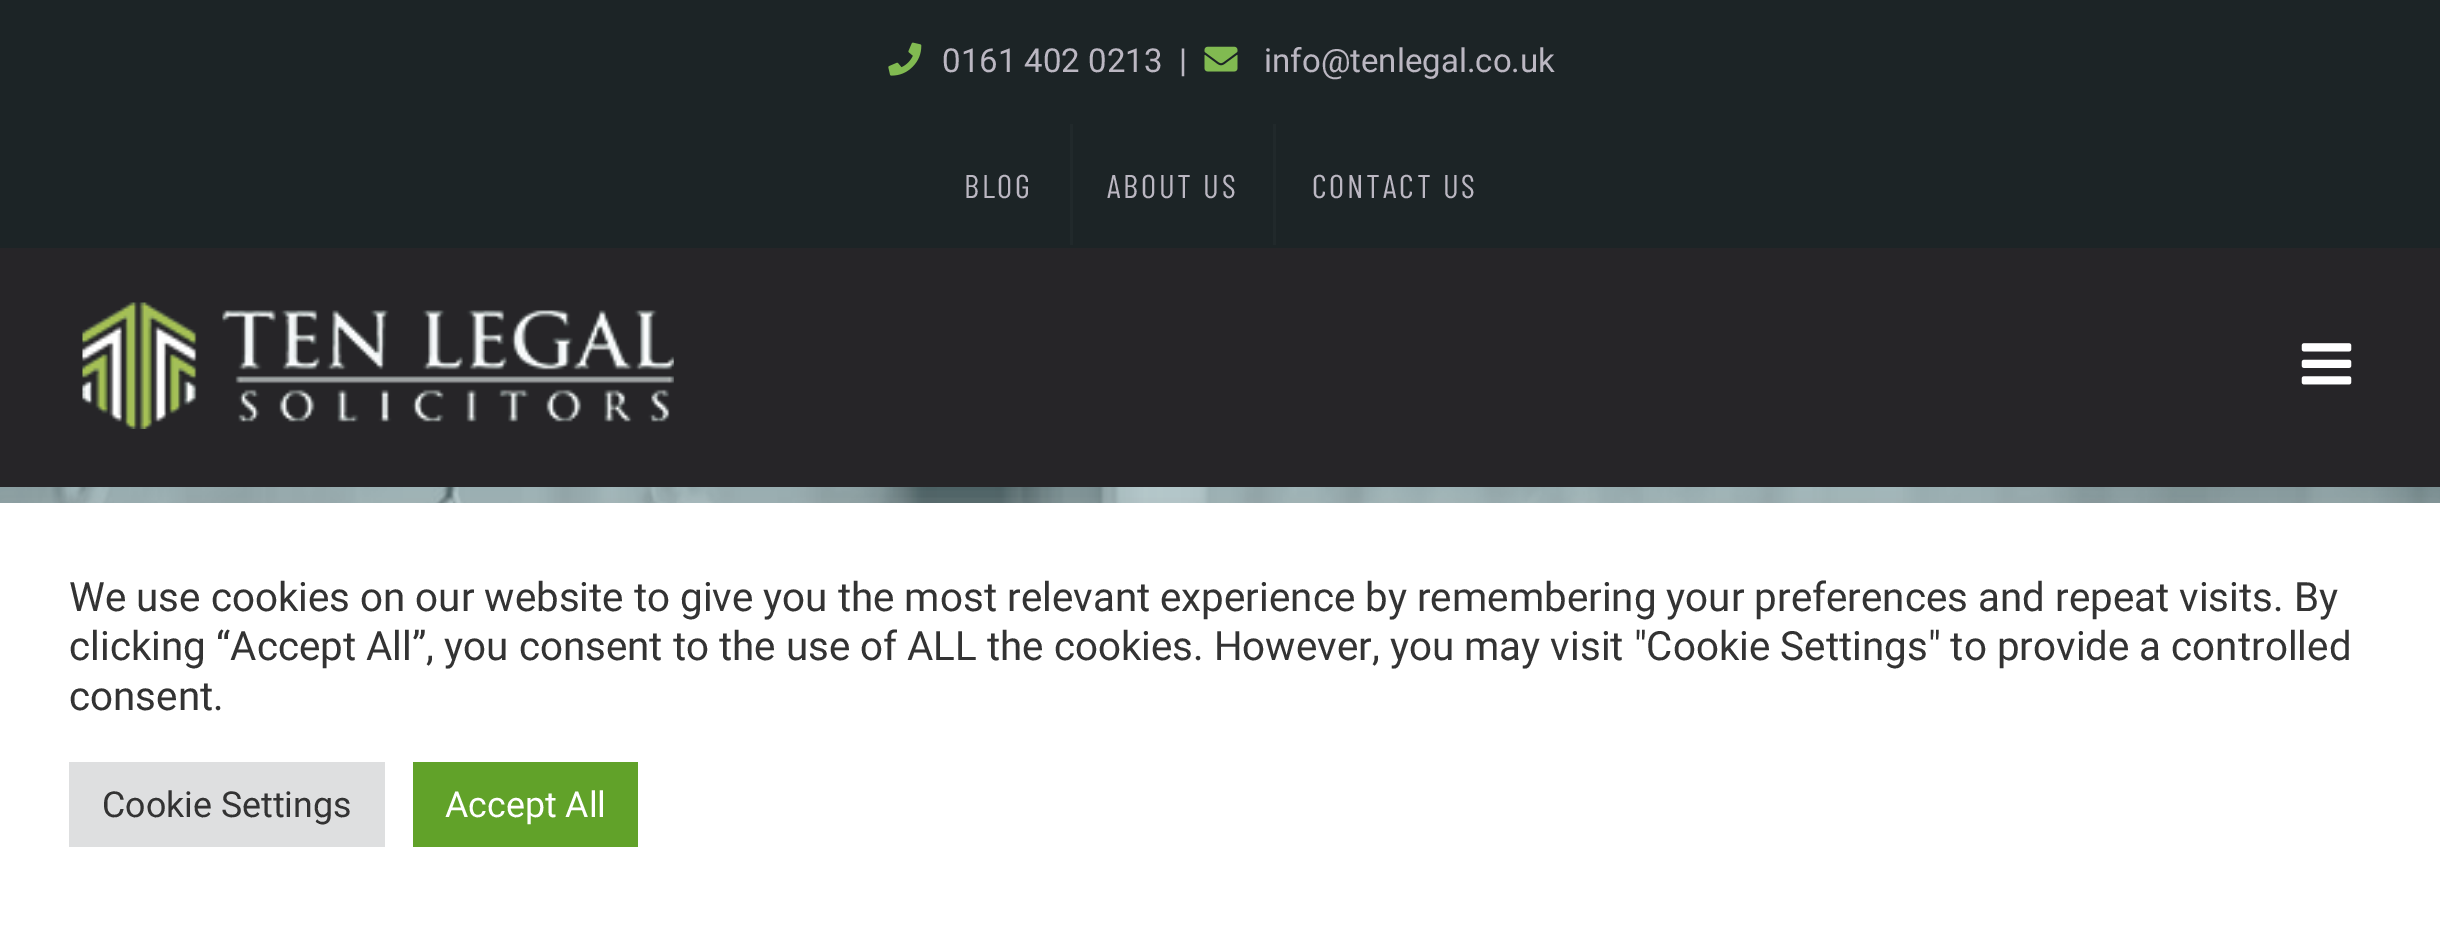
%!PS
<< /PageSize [2440 927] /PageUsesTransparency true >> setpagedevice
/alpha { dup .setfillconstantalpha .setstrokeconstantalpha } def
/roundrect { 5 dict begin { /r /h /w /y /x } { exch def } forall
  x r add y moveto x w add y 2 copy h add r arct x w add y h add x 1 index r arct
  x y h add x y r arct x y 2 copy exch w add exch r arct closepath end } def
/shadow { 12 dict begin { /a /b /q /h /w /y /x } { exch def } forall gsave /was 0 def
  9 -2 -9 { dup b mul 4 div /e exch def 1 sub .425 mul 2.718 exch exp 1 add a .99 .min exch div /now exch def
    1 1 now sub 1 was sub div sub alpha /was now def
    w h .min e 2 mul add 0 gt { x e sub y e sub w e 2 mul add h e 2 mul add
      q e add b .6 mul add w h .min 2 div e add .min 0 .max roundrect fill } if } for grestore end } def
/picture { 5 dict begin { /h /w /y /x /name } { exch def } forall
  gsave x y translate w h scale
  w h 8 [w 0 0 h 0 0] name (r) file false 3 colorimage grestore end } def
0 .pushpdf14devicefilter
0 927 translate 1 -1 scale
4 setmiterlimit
1 setgray
0 0 2440 927 rectfill
0.11 0.141 0.149 setrgbcolor
0 0 2440 248 rectfill
(img1.rgb) 888 42 34 34 picture
/Roboto-Regular [33 0 0 -33 0 0] selectfont
0.733 0.718 0.761 setrgbcolor
942 72 moveto (0161 402 0213) show
1179 72 moveto (|) show
(img2.rgb) 1204 46 34 26 picture
1264 72 moveto (info@tenlegal.co.uk) show
/BarlowCondensed-Regular [33 0 0 -33 0 0] selectfont
964 198 moveto 2.75 0 (BLOG) ashow
0.129 0.161 0.169 setrgbcolor
1070 124 3 121 rectfill
0.733 0.718 0.761 setrgbcolor
1107 198 moveto 2.75 0 (ABOUT US) ashow
0.129 0.161 0.169 setrgbcolor
1273 124 3 121 rectfill
0.733 0.718 0.761 setrgbcolor
1312 198 moveto 2.75 0 (CONTACT US) ashow
(img5.rgb) 0 487 2440 16 picture
0.675 0.671 0.671 setrgbcolor
0 501 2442 426 0 14 0.3 shadow
0.149 0.145 0.157 setrgbcolor
0 248 2440 239 rectfill
(img3.rgb) 82 302 592 127 picture
(img4.rgb) 2301 343 51 42 picture
1 setgray
0 503 2440 424 rectfill
/Roboto-Regular [40.33 0 0 -40.33 0 0] selectfont
0.2 setgray
69 611 moveto (We use cookies on our website to give you the most relevant experience by remembering your preferences and repeat visits. By) show
69 660 moveto (clicking “Accept All”, you consent to the use of ALL the cookies. However, you may visit "Cookie Settings" to provide a controlled) show
69 710 moveto (consent.) show
0.871 0.875 0.878 setrgbcolor
69 762 316 85 rectfill
/Roboto-Regular [35.75 0 0 -35.75 0 0] selectfont
0.2 setgray
102 817 moveto (Cookie Settings) show
0.38 0.635 0.161 setrgbcolor
413 762 225 85 rectfill
1 setgray
445 817 moveto (Accept All) show
.poppdf14devicefilter showpage
